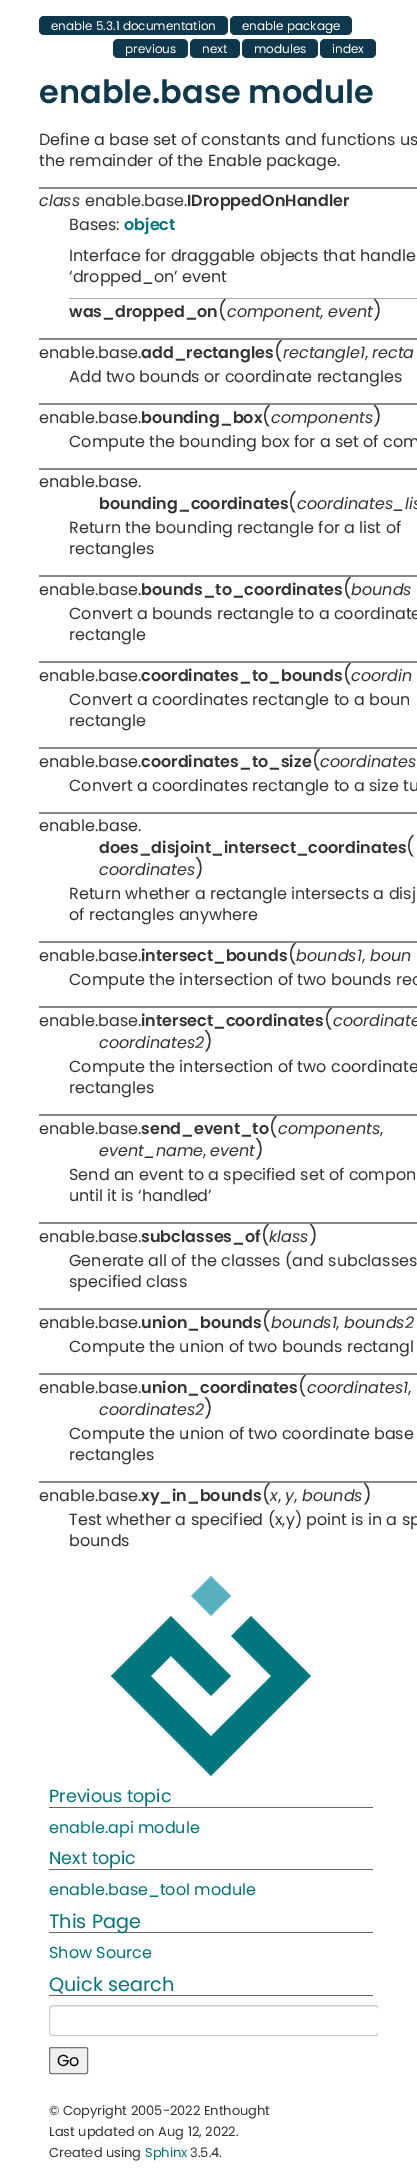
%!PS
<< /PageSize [417 2177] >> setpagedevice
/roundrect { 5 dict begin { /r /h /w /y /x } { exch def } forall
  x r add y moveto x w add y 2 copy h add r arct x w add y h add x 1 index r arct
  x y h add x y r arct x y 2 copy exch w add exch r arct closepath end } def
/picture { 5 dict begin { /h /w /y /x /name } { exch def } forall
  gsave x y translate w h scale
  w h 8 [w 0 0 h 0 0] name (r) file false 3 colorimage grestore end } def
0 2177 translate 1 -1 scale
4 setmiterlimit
1 setgray
0 0 417 2177 rectfill
0.059 0.22 0.302 setrgbcolor
39 16 189 19 5 roundrect fill
/Poppins-Regular [12 0 0 -12 0 0] selectfont
1 setgray
51 30 moveto (enable 5.3.1 documentation) show
0.059 0.22 0.302 setrgbcolor
230 16 122 19 5 roundrect fill
1 setgray
242 30 moveto (enable package) show
0.059 0.22 0.302 setrgbcolor
113 39 75 19 5 roundrect fill
1 setgray
125 53 moveto (previous) show
0.059 0.22 0.302 setrgbcolor
190 39 50 19 5 roundrect fill
1 setgray
202 53 moveto (next) show
0.059 0.22 0.302 setrgbcolor
242 39 76 19 5 roundrect fill
1 setgray
254 53 moveto (modules) show
0.059 0.22 0.302 setrgbcolor
320 39 56 19 5 roundrect fill
1 setgray
332 53 moveto (index) show
/Poppins-SemiBold [32 0 0 -32 0 0] selectfont
0.059 0.22 0.302 setrgbcolor
39 103 moveto (enable.base module) show
/Poppins-Regular [16 0 0 -16 0 0] selectfont
0.2 setgray
39 145 moveto (Define a base set of constants and functions us) show
39 166 moveto (the remainder of the Enable package.) show
0.533 setgray
39 187 378 2 rectfill
/Poppins-Italic [16 0 0 -16 0 0] selectfont
0.2 setgray
39 206 moveto (class) show
/Poppins-Regular [16 0 0 -16 0 0] selectfont
85 206 moveto (enable.base.) show
/Poppins-SemiBold [16 0 0 -16 0 0] selectfont
187 206 moveto (IDroppedOnHandler) show
/Poppins-Regular [16 0 0 -16 0 0] selectfont
69 230 moveto (Bases:) show
/Poppins-SemiBold [16 0 0 -16 0 0] selectfont
0 0.463 0.486 setrgbcolor
124 230 moveto (object) show
/Poppins-Regular [16 0 0 -16 0 0] selectfont
0.2 setgray
69 261 moveto (Interface for draggable objects that handle) show
69 282 moveto (‘dropped_on’ event) show
0.667 setgray
69 298 348 1 rectfill
/Poppins-SemiBold [16 0 0 -16 0 0] selectfont
0.2 setgray
69 317 moveto (was_dropped_on) show
/Poppins-Regular [19.25 0 0 -19.25 0 0] selectfont
218 317 moveto (\() show
/Poppins-Italic [16 0 0 -16 0 0] selectfont
227 317 moveto (component) show
/Poppins-Regular [16 0 0 -16 0 0] selectfont
320 317 moveto (,) show
/Poppins-Italic [16 0 0 -16 0 0] selectfont
328 317 moveto (event) show
/Poppins-Regular [19.25 0 0 -19.25 0 0] selectfont
373 317 moveto (\)) show
0.533 setgray
39 338 378 2 rectfill
/Poppins-Regular [16 0 0 -16 0 0] selectfont
0.2 setgray
39 358 moveto (enable.base.) show
/Poppins-SemiBold [16 0 0 -16 0 0] selectfont
141 358 moveto (add_rectangles) show
/Poppins-Regular [19.25 0 0 -19.25 0 0] selectfont
274 358 moveto (\() show
/Poppins-Italic [16 0 0 -16 0 0] selectfont
283 358 moveto (rectangle1) show
/Poppins-Regular [16 0 0 -16 0 0] selectfont
365 358 moveto (,) show
/Poppins-Italic [16 0 0 -16 0 0] selectfont
372 358 moveto (recta) show
/Poppins-Regular [16 0 0 -16 0 0] selectfont
69 382 moveto (Add two bounds or coordinate rectangles) show
0.533 setgray
39 403 378 2 rectfill
0.2 setgray
39 423 moveto (enable.base.) show
/Poppins-SemiBold [16 0 0 -16 0 0] selectfont
141 423 moveto (bounding_box) show
/Poppins-Regular [19.25 0 0 -19.25 0 0] selectfont
262 423 moveto (\() show
/Poppins-Italic [16 0 0 -16 0 0] selectfont
271 423 moveto (components) show
/Poppins-Regular [19.25 0 0 -19.25 0 0] selectfont
373 423 moveto (\)) show
/Poppins-Regular [16 0 0 -16 0 0] selectfont
69 447 moveto (Compute the bounding box for a set of com) show
0.533 setgray
39 468 378 2 rectfill
0.2 setgray
39 487 moveto (enable.base.) show
/Poppins-SemiBold [16 0 0 -16 0 0] selectfont
99 509 moveto (bounding_coordinates) show
/Poppins-Regular [19.25 0 0 -19.25 0 0] selectfont
288 509 moveto (\() show
/Poppins-Italic [16 0 0 -16 0 0] selectfont
297 509 moveto (coordinates_lis) show
/Poppins-Regular [16 0 0 -16 0 0] selectfont
69 533 moveto (Return the bounding rectangle for a list of) show
69 554 moveto (rectangles) show
0.533 setgray
39 575 378 2 rectfill
0.2 setgray
39 595 moveto (enable.base.) show
/Poppins-SemiBold [16 0 0 -16 0 0] selectfont
141 595 moveto (bounds_to_coordinates) show
/Poppins-Regular [19.25 0 0 -19.25 0 0] selectfont
343 595 moveto (\() show
/Poppins-Italic [16 0 0 -16 0 0] selectfont
351 595 moveto (bounds) show
/Poppins-Regular [16 0 0 -16 0 0] selectfont
69 619 moveto (Convert a bounds rectangle to a coordinate) show
69 640 moveto (rectangle) show
0.533 setgray
39 661 378 2 rectfill
0.2 setgray
39 681 moveto (enable.base.) show
/Poppins-SemiBold [16 0 0 -16 0 0] selectfont
141 681 moveto (coordinates_to_bounds) show
/Poppins-Regular [19.25 0 0 -19.25 0 0] selectfont
343 681 moveto (\() show
/Poppins-Italic [16 0 0 -16 0 0] selectfont
351 681 moveto (coordin) show
/Poppins-Regular [16 0 0 -16 0 0] selectfont
69 705 moveto (Convert a coordinates rectangle to a boun) show
69 726 moveto (rectangle) show
0.533 setgray
39 747 378 2 rectfill
0.2 setgray
39 767 moveto (enable.base.) show
/Poppins-SemiBold [16 0 0 -16 0 0] selectfont
141 767 moveto (coordinates_to_size) show
/Poppins-Regular [19.25 0 0 -19.25 0 0] selectfont
312 767 moveto (\() show
/Poppins-Italic [16 0 0 -16 0 0] selectfont
320 767 moveto (coordinates) show
/Poppins-Regular [16 0 0 -16 0 0] selectfont
69 791 moveto (Convert a coordinates rectangle to a size tu) show
0.533 setgray
39 812 378 2 rectfill
0.2 setgray
39 831 moveto (enable.base.) show
/Poppins-SemiBold [16 0 0 -16 0 0] selectfont
99 853 moveto (does_disjoint_intersect_coordinates) show
/Poppins-Regular [19.25 0 0 -19.25 0 0] selectfont
406 853 moveto (\() show
/Poppins-Italic [16 0 0 -16 0 0] selectfont
99 875 moveto (coordinates) show
/Poppins-Regular [19.25 0 0 -19.25 0 0] selectfont
195 875 moveto (\)) show
/Poppins-Regular [16 0 0 -16 0 0] selectfont
69 899 moveto (Return whether a rectangle intersects a disj) show
69 920 moveto (of rectangles anywhere) show
0.533 setgray
39 941 378 2 rectfill
0.2 setgray
39 961 moveto (enable.base.) show
/Poppins-SemiBold [16 0 0 -16 0 0] selectfont
141 961 moveto (intersect_bounds) show
/Poppins-Regular [19.25 0 0 -19.25 0 0] selectfont
288 961 moveto (\() show
/Poppins-Italic [16 0 0 -16 0 0] selectfont
296 961 moveto (bounds1) show
/Poppins-Regular [16 0 0 -16 0 0] selectfont
362 961 moveto (,) show
/Poppins-Italic [16 0 0 -16 0 0] selectfont
370 961 moveto (boun) show
/Poppins-Regular [16 0 0 -16 0 0] selectfont
69 985 moveto (Compute the intersection of two bounds rec) show
0.533 setgray
39 1006 378 2 rectfill
0.2 setgray
39 1026 moveto (enable.base.) show
/Poppins-SemiBold [16 0 0 -16 0 0] selectfont
141 1026 moveto (intersect_coordinates) show
/Poppins-Regular [19.25 0 0 -19.25 0 0] selectfont
324 1026 moveto (\() show
/Poppins-Italic [16 0 0 -16 0 0] selectfont
333 1026 moveto (coordinate) show
99 1048 moveto (coordinates2) show
/Poppins-Regular [19.25 0 0 -19.25 0 0] selectfont
204 1048 moveto (\)) show
/Poppins-Regular [16 0 0 -16 0 0] selectfont
69 1072 moveto (Compute the intersection of two coordinate) show
69 1093 moveto (rectangles) show
0.533 setgray
39 1114 378 2 rectfill
0.2 setgray
39 1134 moveto (enable.base.) show
/Poppins-SemiBold [16 0 0 -16 0 0] selectfont
141 1134 moveto (send_event_to) show
/Poppins-Regular [19.25 0 0 -19.25 0 0] selectfont
269 1134 moveto (\() show
/Poppins-Italic [16 0 0 -16 0 0] selectfont
278 1134 moveto (components) show
/Poppins-Regular [16 0 0 -16 0 0] selectfont
380 1134 moveto (,) show
/Poppins-Italic [16 0 0 -16 0 0] selectfont
99 1156 moveto (event_name) show
/Poppins-Regular [16 0 0 -16 0 0] selectfont
203 1156 moveto (,) show
/Poppins-Italic [16 0 0 -16 0 0] selectfont
210 1156 moveto (event) show
/Poppins-Regular [19.25 0 0 -19.25 0 0] selectfont
255 1156 moveto (\)) show
/Poppins-Regular [16 0 0 -16 0 0] selectfont
69 1180 moveto (Send an event to a specified set of compon) show
69 1201 moveto (until it is ‘handled’) show
0.533 setgray
39 1222 378 2 rectfill
0.2 setgray
39 1242 moveto (enable.base.) show
/Poppins-SemiBold [16 0 0 -16 0 0] selectfont
141 1242 moveto (subclasses_of) show
/Poppins-Regular [19.25 0 0 -19.25 0 0] selectfont
261 1242 moveto (\() show
/Poppins-Italic [16 0 0 -16 0 0] selectfont
269 1242 moveto (klass) show
/Poppins-Regular [19.25 0 0 -19.25 0 0] selectfont
309 1242 moveto (\)) show
/Poppins-Regular [16 0 0 -16 0 0] selectfont
69 1266 moveto (Generate all of the classes \(and subclasses) show
69 1287 moveto (specified class) show
0.533 setgray
39 1308 378 2 rectfill
0.2 setgray
39 1328 moveto (enable.base.) show
/Poppins-SemiBold [16 0 0 -16 0 0] selectfont
141 1328 moveto (union_bounds) show
/Poppins-Regular [19.25 0 0 -19.25 0 0] selectfont
262 1328 moveto (\() show
/Poppins-Italic [16 0 0 -16 0 0] selectfont
271 1328 moveto (bounds1) show
/Poppins-Regular [16 0 0 -16 0 0] selectfont
336 1328 moveto (,) show
/Poppins-Italic [16 0 0 -16 0 0] selectfont
344 1328 moveto (bounds2) show
/Poppins-Regular [16 0 0 -16 0 0] selectfont
69 1352 moveto (Compute the union of two bounds rectangl) show
0.533 setgray
39 1373 378 2 rectfill
0.2 setgray
39 1393 moveto (enable.base.) show
/Poppins-SemiBold [16 0 0 -16 0 0] selectfont
141 1393 moveto (union_coordinates) show
/Poppins-Regular [19.25 0 0 -19.25 0 0] selectfont
298 1393 moveto (\() show
/Poppins-Italic [16 0 0 -16 0 0] selectfont
307 1393 moveto (coordinates1) show
/Poppins-Regular [16 0 0 -16 0 0] selectfont
408 1393 moveto (,) show
/Poppins-Italic [16 0 0 -16 0 0] selectfont
99 1415 moveto (coordinates2) show
/Poppins-Regular [19.25 0 0 -19.25 0 0] selectfont
204 1415 moveto (\)) show
/Poppins-Regular [16 0 0 -16 0 0] selectfont
69 1439 moveto (Compute the union of two coordinate base) show
69 1460 moveto (rectangles) show
0.533 setgray
39 1481 378 2 rectfill
0.2 setgray
39 1501 moveto (enable.base.) show
/Poppins-SemiBold [16 0 0 -16 0 0] selectfont
141 1501 moveto (xy_in_bounds) show
/Poppins-Regular [19.25 0 0 -19.25 0 0] selectfont
262 1501 moveto (\() show
/Poppins-Italic [16 0 0 -16 0 0] selectfont
270 1501 moveto (x) show
285 1501 moveto (y) show
302 1501 moveto (bounds) show
/Poppins-Regular [19.25 0 0 -19.25 0 0] selectfont
363 1501 moveto (\)) show
/Poppins-Regular [16 0 0 -16 0 0] selectfont
278 1501 moveto (,) show
294 1501 moveto (,) show
69 1525 moveto (Test whether a specified \(x,y\) point is in a sp) show
69 1546 moveto (bounds) show
(img1.rgb) 111 1576 200 200 picture
0.396 setgray
49 1807 324 1 rectfill
/Poppins-Regular [17.5 0 0 -17.5 0 0] selectfont
0 0.463 0.486 setrgbcolor
49 1802 moveto (Previous topic) show
/Poppins-Regular [16 0 0 -16 0 0] selectfont
49 1833 moveto (enable.api module) show
0.396 setgray
49 1869 324 1 rectfill
/Poppins-Regular [17.5 0 0 -17.5 0 0] selectfont
0 0.463 0.486 setrgbcolor
49 1864 moveto (Next topic) show
/Poppins-Regular [16 0 0 -16 0 0] selectfont
49 1895 moveto (enable.base_tool module) show
0.396 setgray
49 1932 324 1 rectfill
/Poppins-Regular [19.25 0 0 -19.25 0 0] selectfont
0 0.463 0.486 setrgbcolor
49 1928 moveto (This Page) show
/Poppins-Regular [16 0 0 -16 0 0] selectfont
49 1958 moveto (Show Source) show
0.396 setgray
49 1995 324 1 rectfill
/Poppins-Regular [19.25 0 0 -19.25 0 0] selectfont
0 0.463 0.486 setrgbcolor
49 1991 moveto (Quick search) show
0.925 setgray
newpath 53 2007 moveto 375 2007 lineto 377 2007 378 2008 378 2010 curveto 378 2008 377 2006 375 2006 curveto 53 2006 lineto 51 2006 50 2008 50 2010 curveto 50 2008 51 2007 53 2007 curveto closepath fill
gsave
39 1566 339 529 rectclip
0.8 setgray
49.5 2005.5 329 30 3.5 roundrect stroke
grestore
0.937 setgray
49.5 2047.5 38 26 1.5 roundrect gsave fill grestore
0.463 setgray
stroke
/Poppins-Regular [16 0 0 -16 0 0] selectfont
0 setgray
57 2066 moveto (Go) show
/Poppins-Regular [13 0 0 -13 0 0] selectfont
0.2 setgray
49 2115 moveto (© Copyright 2005-2022 Enthought) show
49 2136 moveto (Last updated on Aug 12, 2022.) show
49 2157 moveto (Created using) show
0 0.463 0.486 setrgbcolor
145 2157 moveto (Sphinx) show
0.2 setgray
190 2157 moveto (3.5.4.) show
showpage
